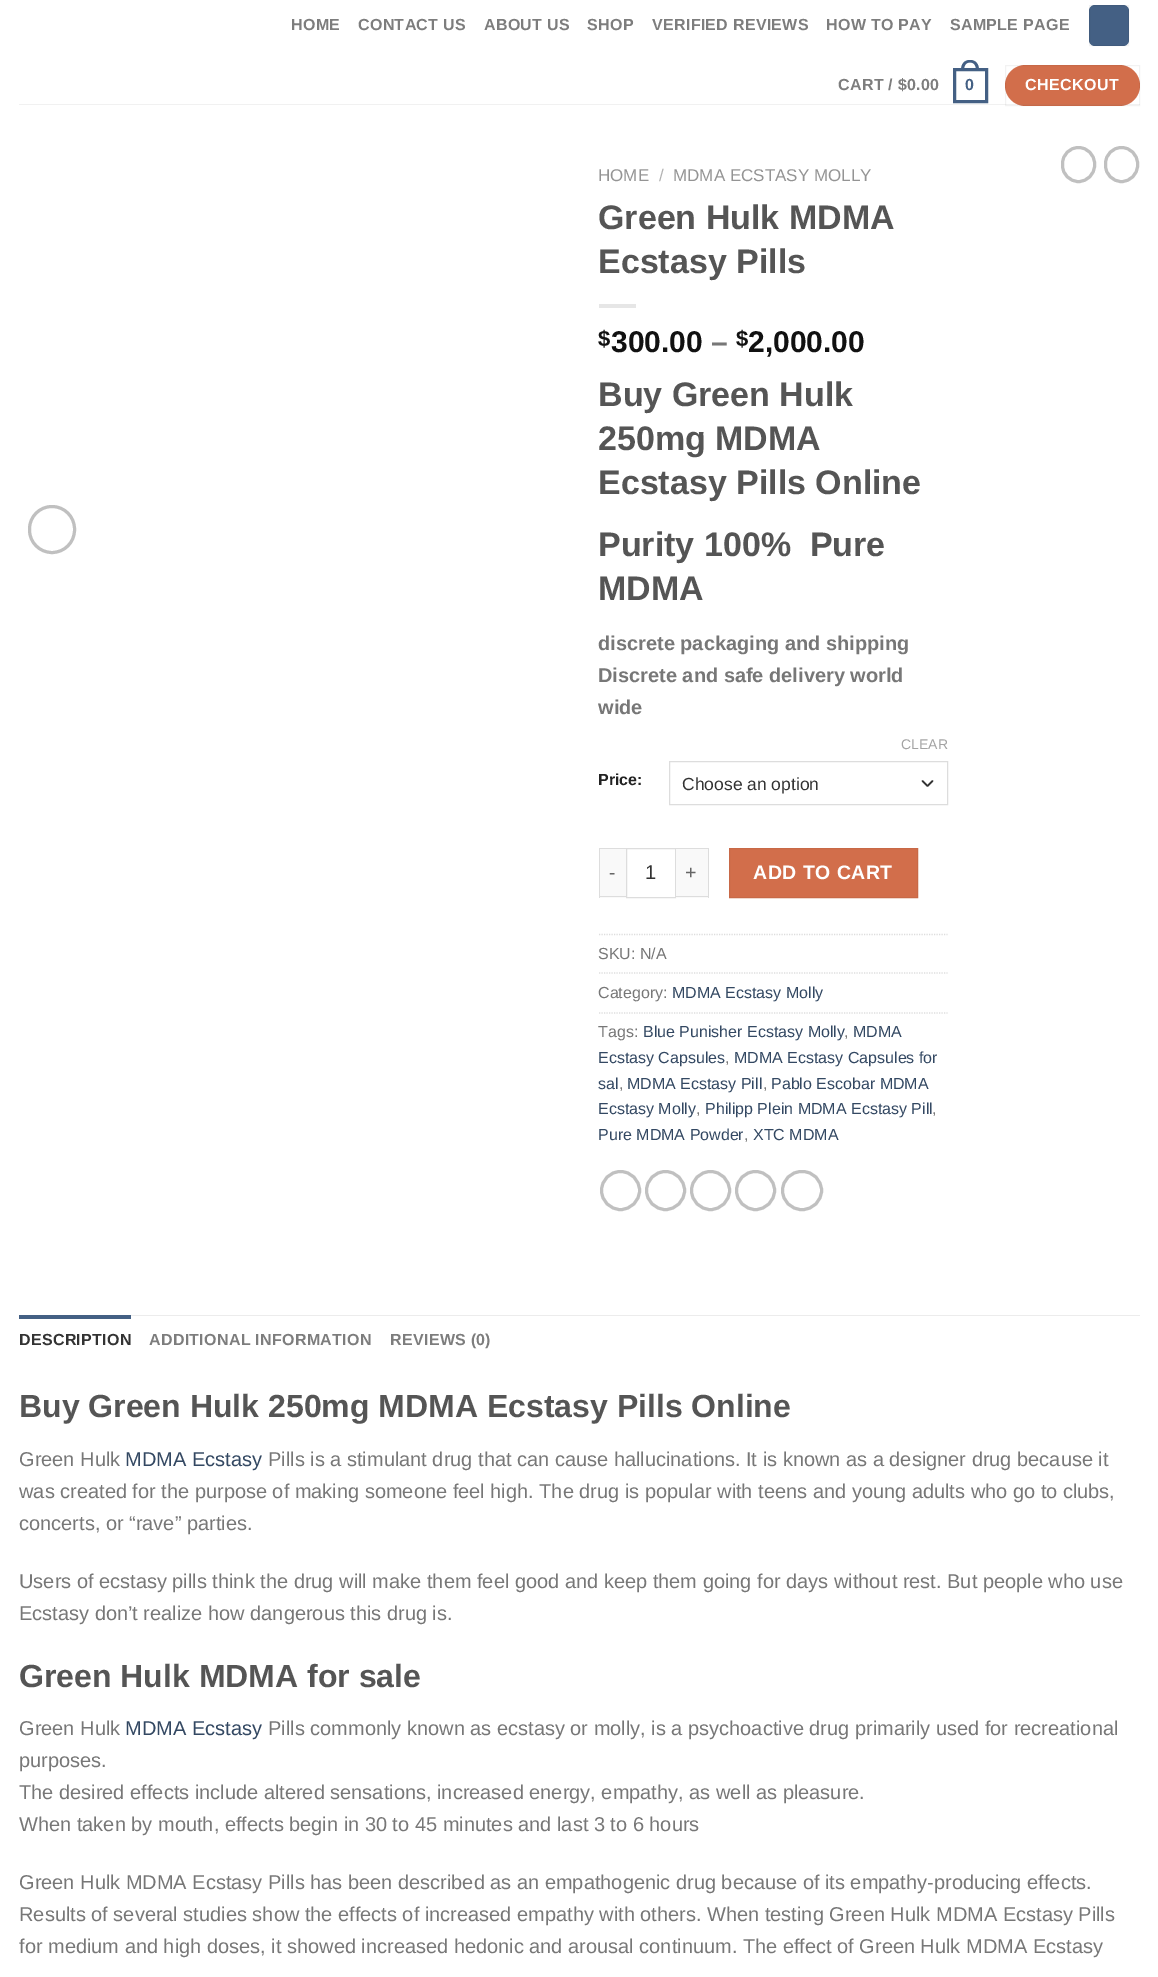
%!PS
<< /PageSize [1158 1977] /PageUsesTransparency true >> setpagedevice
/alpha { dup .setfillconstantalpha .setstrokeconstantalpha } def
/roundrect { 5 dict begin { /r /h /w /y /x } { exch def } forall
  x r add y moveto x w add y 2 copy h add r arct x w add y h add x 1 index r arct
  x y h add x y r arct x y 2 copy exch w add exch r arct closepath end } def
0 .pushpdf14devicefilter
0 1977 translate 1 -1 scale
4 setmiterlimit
1 setgray
0 0 1158 1977 rectfill
/LiberationSans-Bold [16 0 0 -16 0 0] selectfont
0.49 setgray
291 30 moveto 0.3 0 (HOME) ashow
358 30 moveto 0.3 0 (CONTACT US) ashow
484 30 moveto 0.3 0 (ABOUT US) ashow
587 30 moveto 0.3 0 (SHOP) ashow
652 30 moveto 0.3 0 (VERIFIED REVIEWS) ashow
826 30 moveto 0.3 0 (HOW TO PAY) ashow
950 30 moveto 0.3 0 (SAMPLE PAGE) ashow
0.267 0.376 0.518 setrgbcolor
1089 5 40 41 6 roundrect fill
0.05 alpha
0 setgray
1089.5 5.5 39 40 rectstroke
1 alpha
0.49 setgray
838 90 moveto 0.3 0 (CART / $0.00) ashow
0.267 0.376 0.518 setrgbcolor
3 setlinewidth
954.5 69.5 32 32 rectstroke
newpath 970 60 moveto 976 60 979 64.5 979 70 curveto 961 70 lineto 961 64.5 964 60 970 60 curveto closepath 970 62.5 moveto 974.5 62.5 976 66 976 70 curveto 964 70 lineto 964 66 965.5 62.5 970 62.5 curveto closepath eofill
965 90 moveto 0.3 0 (0) ashow
0.824 0.431 0.294 setrgbcolor
1005 65 135 41 20.5 roundrect fill
0.05 alpha
0 setgray
1 setlinewidth
1005.5 65.5 134 40 rectstroke
1 alpha
1 setgray
1025 90 moveto 0.5 0 (CHECKOUT) ashow
0.1 alpha
0.467 setgray
19 104 1121 1 rectfill
1 alpha
0.753 setgray
3 setlinewidth
29.5 506.5 45 46 22.5 roundrect stroke
/LiberationSans-Regular [17 0 0 -17 0 0] selectfont
0.58 setgray
598 181 moveto (HOME) show
0.698 setgray
659 181 moveto (/) show
0.58 setgray
673 181 moveto (MDMA ECSTASY MOLLY) show
/LiberationSans-Bold [34 0 0 -34 0 0] selectfont
0.333 setgray
598 229 moveto (Green Hulk MDMA) show
598 273 moveto (Ecstasy Pills) show
0.902 setgray
599 304 37 4 rectfill
/LiberationSans-Bold [22 0 0 -22 0 0] selectfont
0.067 setgray
598 346 moveto ($) show
/LiberationSans-Bold [30 0 0 -30 0 0] selectfont
611 352 moveto (300.00) show
0.467 setgray
711 352 moveto (–) show
/LiberationSans-Bold [22 0 0 -22 0 0] selectfont
0.067 setgray
736 346 moveto ($) show
/LiberationSans-Bold [30 0 0 -30 0 0] selectfont
748 352 moveto (2,000.00) show
/LiberationSans-Bold [34 0 0 -34 0 0] selectfont
0.333 setgray
598 406 moveto (Buy Green Hulk) show
598 450 moveto (250mg MDMA) show
598 494 moveto (Ecstasy Pills Online) show
598 556 moveto (Purity 100%  Pure) show
598 600 moveto (MDMA) show
/LiberationSans-Bold [20 0 0 -20 0 0] selectfont
0.467 setgray
598 650 moveto (discrete packaging and shipping) show
598 682 moveto (Discrete and safe delivery world) show
598 714 moveto (wide) show
/LiberationSans-Bold [16 0 0 -16 0 0] selectfont
0.133 setgray
598 785 moveto (Price:) show
/LiberationSans-Regular [14 0 0 -14 0 0] selectfont
0.639 setgray
901 749 moveto (CLEAR) show
0.2 setgray
1.7 setlinewidth
1 setlinecap
1 setlinejoin
newpath 922.5 781 moveto 927.5 786 lineto 932.5 781 lineto stroke
0.867 setgray
1 setlinewidth
0 setlinecap
0 setlinejoin
669.5 761.5 278 43 rectstroke
/LiberationSans-Regular [17.5 0 0 -17.5 0 0] selectfont
0.2 setgray
682 790 moveto (Choose an option) show
0.976 setgray
600 849 26 49 rectfill
0.867 setgray
599 848 27 1 rectfill
599 896 27 1 rectfill
599 848 1 50 rectfill
/LiberationSans-Regular [19.5 0 0 -19.5 0 0] selectfont
0.4 setgray
609 879 moveto 0.5 0 (-) ashow
0.867 setgray
626.5 848.5 49 49 rectstroke
/LiberationSans-Regular [20 0 0 -20 0 0] selectfont
0.2 setgray
645 879 moveto (1) show
0.976 setgray
676 849 32 49 rectfill
0.867 setgray
676 848 33 1 rectfill
708 848 1 50 rectfill
676 896 33 1 rectfill
/LiberationSans-Regular [19.5 0 0 -19.5 0 0] selectfont
0.4 setgray
685 879 moveto 0.5 0 (+) ashow
0.824 0.431 0.294 setrgbcolor
newpath 729.5 848.5 moveto 917.5 848.5 lineto 917.5 897.5 lineto 729.5 897.5 lineto closepath gsave fill grestore
0.784 0.412 0.278 setrgbcolor
stroke
/LiberationSans-Bold [19.5 0 0 -19.5 0 0] selectfont
1 setgray
753 879 moveto 0.5 0 (ADD TO CART) ashow
0.867 setgray
1.2 setlinewidth
[1.25 1.25] 0 setdash
newpath 599 934.5 moveto 947.5 934.5 lineto stroke
/LiberationSans-Regular [16 0 0 -16 0 0] selectfont
0.467 setgray
598 959 moveto (SKU: N/A) show
0.867 setgray
newpath 599 973 moveto 947.5 973 lineto stroke
0.467 setgray
598 998 moveto (Category:) show
0.2 0.282 0.384 setrgbcolor
672 998 moveto (MDMA Ecstasy Molly) show
0.867 setgray
newpath 599 1013 moveto 947.5 1013 lineto stroke
0.467 setgray
598 1037 moveto (Tags:) show
0.2 0.282 0.384 setrgbcolor
643 1037 moveto (Blue Punisher Ecstasy Molly) show
853 1037 moveto (MDMA) show
0.467 setgray
844 1037 moveto (,) show
0.2 0.282 0.384 setrgbcolor
598 1063 moveto (Ecstasy Capsules) show
0.467 setgray
725 1063 moveto (,) show
0.2 0.282 0.384 setrgbcolor
734 1063 moveto (MDMA Ecstasy Capsules for) show
598 1089 moveto (sal) show
0.467 setgray
619 1089 moveto (,) show
0.2 0.282 0.384 setrgbcolor
627 1089 moveto (MDMA Ecstasy Pill) show
0.467 setgray
763 1089 moveto (,) show
0.2 0.282 0.384 setrgbcolor
771 1089 moveto (Pablo Escobar MDMA) show
598 1114 moveto (Ecstasy Molly) show
0.467 setgray
696 1114 moveto (,) show
0.2 0.282 0.384 setrgbcolor
705 1114 moveto (Philipp Plein MDMA Ecstasy Pill) show
0.467 setgray
932 1114 moveto (,) show
0.2 0.282 0.384 setrgbcolor
598 1140 moveto (Pure MDMA Powder) show
0.467 setgray
744 1140 moveto (,) show
0.2 0.282 0.384 setrgbcolor
753 1140 moveto (XTC MDMA) show
0.753 setgray
3 setlinewidth
[] 0 setdash
newpath 620.5 1190.5 19 0 360 arc closepath stroke
newpath 665.5 1190.5 19 0 360 arc closepath stroke
newpath 710.5 1190.5 19 0 360 arc closepath stroke
newpath 755.5 1190.5 19 0 360 arc closepath stroke
782.5 1171.5 39 38 19 roundrect stroke
1062.5 147.5 32 34 16 roundrect stroke
1105.5 147.5 32 34 16 roundrect stroke
0.925 setgray
131 1315 1009 1 rectfill
0.267 0.376 0.518 setrgbcolor
19 1315 112 4 rectfill
/LiberationSans-Bold [16 0 0 -16 0 0] selectfont
0.2 setgray
19 1345 moveto 0.3 0 (DESCRIPTION) ashow
0.49 setgray
149 1345 moveto 0.3 0 (ADDITIONAL INFORMATION) ashow
390 1345 moveto 0.3 0 (REVIEWS \(0\)) ashow
/LiberationSans-Bold [32 0 0 -32 0 0] selectfont
0.333 setgray
19 1417 moveto (Buy Green Hulk 250mg MDMA Ecstasy Pills Online) show
/LiberationSans-Regular [20 0 0 -20 0 0] selectfont
0.467 setgray
19 1466 moveto (Green Hulk) show
0.2 0.282 0.384 setrgbcolor
125 1466 moveto (MDMA Ecstasy) show
0.467 setgray
268 1466 moveto (Pills is a stimulant drug that can cause hallucinations. It is known as a designer drug because it) show
19 1498 moveto (was created for the purpose of making someone feel high. The drug is popular with teens and young adults who go to clubs,) show
19 1530 moveto (concerts, or “rave” parties.) show
19 1588 moveto (Users of ecstasy pills think the drug will make them feel good and keep them going for days without rest. But people who use) show
19 1620 moveto (Ecstasy don’t realize how dangerous this drug is.) show
/LiberationSans-Bold [32 0 0 -32 0 0] selectfont
0.333 setgray
19 1687 moveto (Green Hulk MDMA for sale) show
/LiberationSans-Regular [20 0 0 -20 0 0] selectfont
0.467 setgray
19 1735 moveto (Green Hulk) show
0.2 0.282 0.384 setrgbcolor
125 1735 moveto (MDMA Ecstasy) show
0.467 setgray
268 1735 moveto (Pills commonly known as ecstasy or molly, is a psychoactive drug primarily used for recreational) show
19 1767 moveto (purposes.) show
19 1799 moveto (The desired effects include altered sensations, increased energy, empathy, as well as pleasure.) show
19 1831 moveto (When taken by mouth, effects begin in 30 to 45 minutes and last 3 to 6 hours) show
19 1889 moveto (Green Hulk MDMA Ecstasy Pills has been described as an empathogenic drug because of its empathy-producing effects.) show
19 1921 moveto (Results of several studies show the effects of increased empathy with others. When testing Green Hulk MDMA Ecstasy Pills) show
19 1953 moveto (for medium and high doses, it showed increased hedonic and arousal continuum. The effect of Green Hulk MDMA Ecstasy) show
.poppdf14devicefilter showpage
